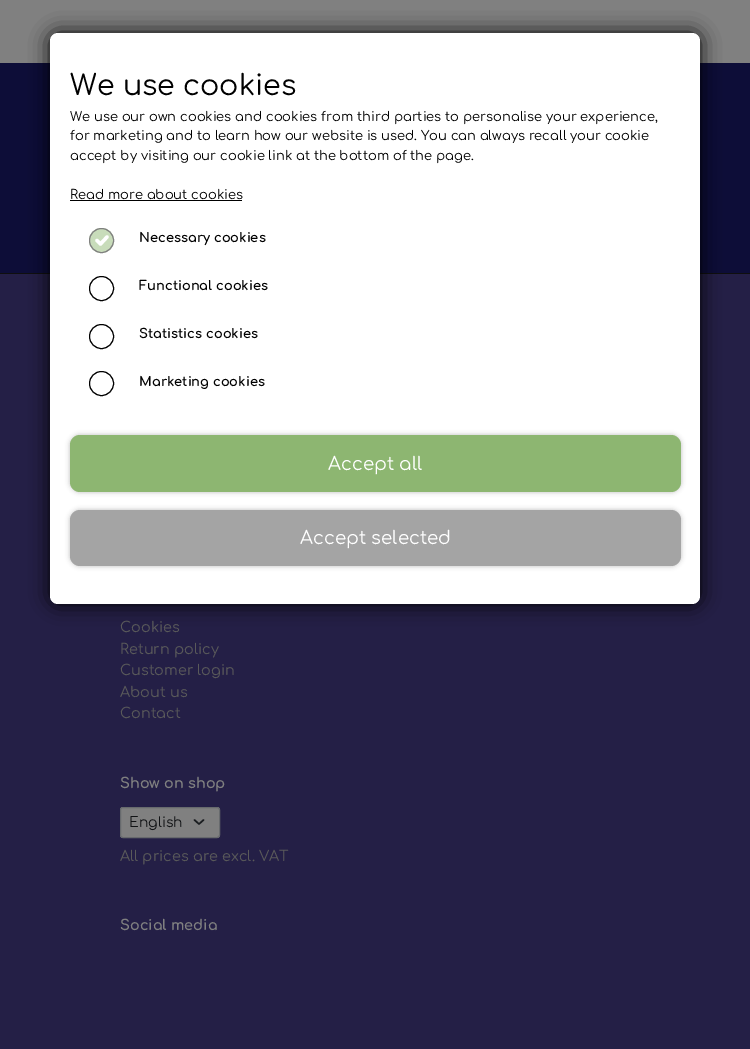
%!PS
<< /PageSize [750 1049] /PageUsesTransparency true >> setpagedevice
/alpha { dup .setfillconstantalpha .setstrokeconstantalpha } def
/roundrect { 5 dict begin { /r /h /w /y /x } { exch def } forall
  x r add y moveto x w add y 2 copy h add r arct x w add y h add x 1 index r arct
  x y h add x y r arct x y 2 copy exch w add exch r arct closepath end } def
/shadow { 12 dict begin { /a /b /q /h /w /y /x } { exch def } forall gsave /was 0 def
  9 -2 -9 { dup b mul 4 div /e exch def 1 sub .425 mul 2.718 exch exp 1 add a .99 .min exch div /now exch def
    1 1 now sub 1 was sub div sub alpha /was now def
    w h .min e 2 mul add 0 gt { x e sub y e sub w e 2 mul add h e 2 mul add
      q e add b .6 mul add w h .min 2 div e add .min 0 .max roundrect fill } if } for grestore end } def
0 .pushpdf14devicefilter
0 1049 translate 1 -1 scale
4 setmiterlimit
0.141 0.122 0.275 setrgbcolor
0 0 750 1049 rectfill
0.502 setgray
0 0 750 63 rectfill
0.051 0.051 0.22 setrgbcolor
0 63 750 210 rectfill
0.059 setgray
0 273 750 1 rectfill
0 setgray
50 33 650 571 8 10 1 shadow
1 setgray
50 33 650 571 8 roundrect fill
/Comfortaa-Regular [28.5 0 0 -28.5 0 0] selectfont
0 setgray
70 95 moveto (We use cookies) show
/Comfortaa-Regular [13 0 0 -13 0 0] selectfont
70 121 moveto (We use our own cookies and cookies from third parties to personalise your experience,) show
70 140 moveto (for marketing and to learn how our website is used. You can always recall your cookie) show
70 160 moveto (accept by visiting our cookie link at the bottom of the page.) show
70 199 moveto (Read more about cookies) show
70 200 172 1 rectfill
0.784 0.863 0.729 setrgbcolor
newpath 101.5 240.5 12.5 0 360 arc closepath fill
1 setgray
3.4 setlinewidth
1 setlinecap
1 setlinejoin
newpath 97 240.5 moveto 100.5 244 lineto 107 237 lineto stroke
0.502 setgray
1 setlinewidth
0 setlinecap
0 setlinejoin
newpath 101.5 240.5 12 0 360 arc closepath stroke
/Comfortaa-Bold [13 0 0 -13 0 0] selectfont
0 setgray
139 242 moveto (Necessary cookies) show
newpath 101.5 288.5 12 0 360 arc closepath stroke
139 290 moveto (Functional cookies) show
newpath 101.5 336.5 12 0 360 arc closepath stroke
139 338 moveto (Statistics cookies) show
newpath 101.5 383.5 12 0 360 arc closepath stroke
139 386 moveto (Marketing cookies) show
70 435 611 57 10 2.5 0.25 shadow
0.553 0.714 0.443 setrgbcolor
70 435 611 57 10 roundrect fill
/Comfortaa-Regular [18.25 0 0 -18.25 0 0] selectfont
1 setgray
328 470 moveto (Accept all) show
0 setgray
70 510 611 56 10 2.5 0.25 shadow
0.643 setgray
70 510 611 56 10 roundrect fill
1 setgray
300 544 moveto (Accept selected) show
/Comfortaa-Regular [14.4 0 0 -14.4 0 0] selectfont
0.353 setgray
120 632 moveto (Cookies) show
120 654 moveto (Return policy) show
120 675 moveto (Customer login) show
120 697 moveto (About us) show
120 718 moveto (Contact) show
/Comfortaa-Bold [14.4 0 0 -14.4 0 0] selectfont
0.502 setgray
120 788 moveto (Show on shop) show
120 807 100 31 3 roundrect fill
0.102 0.114 0.125 setrgbcolor
1.5 setlinewidth
1 setlinecap
1 setlinejoin
newpath 194.5 820 moveto 199 824 lineto 203.5 820 lineto stroke
0.404 0.416 0.427 setrgbcolor
1 setlinewidth
0 setlinecap
0 setlinejoin
120.5 807.5 99 30 2.5 roundrect stroke
/Comfortaa-Regular [14 0 0 -14 0 0] selectfont
0.067 0.075 0.082 setrgbcolor
129 827 moveto (English) show
/Comfortaa-Regular [14.4 0 0 -14.4 0 0] selectfont
0.353 setgray
120 861 moveto (All prices are excl. VAT) show
/Comfortaa-Bold [14.4 0 0 -14.4 0 0] selectfont
0.502 setgray
120 930 moveto (Social media) show
.poppdf14devicefilter showpage
